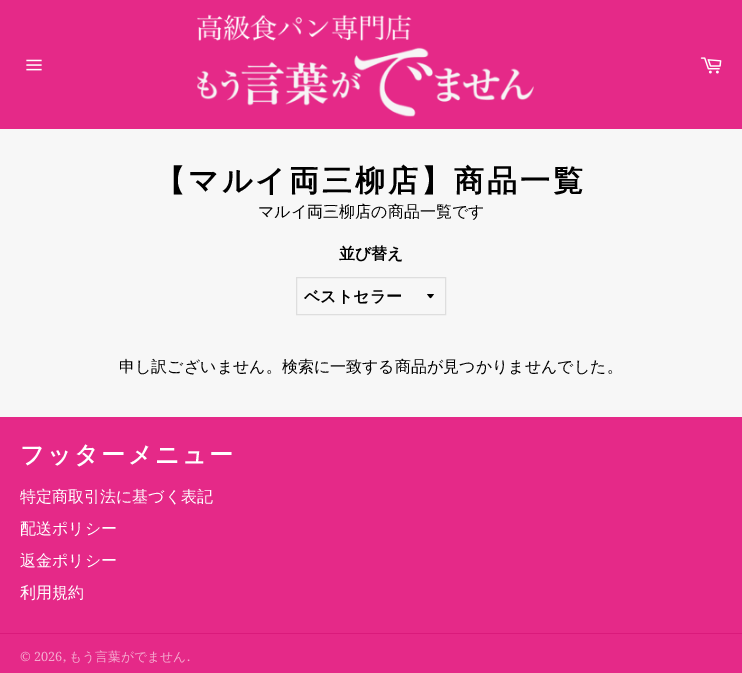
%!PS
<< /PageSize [742 673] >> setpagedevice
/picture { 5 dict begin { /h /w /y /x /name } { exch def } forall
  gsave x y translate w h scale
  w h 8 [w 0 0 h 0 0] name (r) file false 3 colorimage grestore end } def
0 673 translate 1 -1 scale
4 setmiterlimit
0.969 setgray
0 0 742 673 rectfill
0.898 0.161 0.533 setrgbcolor
0 0 742 129 rectfill
(img1.rgb) 26 59 16 12 picture
(img2.rgb) 197 14 337 103 picture
(img3.rgb) 700 57 22 17 picture
/WenQuanYiZenHei-Bold [30 0 0 -30 0 0] selectfont
0 setgray
155 191 moveto 3 0 (【マルイ両三柳店】商品一覧) ashow
/WenQuanYiZenHei-Medium [16 0 0 -16 0 0] selectfont
258 217 moveto (マルイ両三柳店の商品一覧です) show
/WenQuanYiZenHei-Bold [16 0 0 -16 0 0] selectfont
339 259 moveto (並び替え) show
newpath 427 294 moveto 431.5 299.5 429.5 299.5 434 294 curveto closepath fill
0.871 setgray
296.5 277.5 149 37 rectstroke
0 setgray
304 302 moveto (ベストセラー) show
/WenQuanYiZenHei-Medium [16 0 0 -16 0 0] selectfont
119 372 moveto (申し訳ございません。検索に一致する商品が見つかりませんでした。) show
0.898 0.161 0.533 setrgbcolor
0 417 742 256 rectfill
/WenQuanYiZenHei-Bold [24 0 0 -24 0 0] selectfont
1 setgray
20 463 moveto 2.5 0 (フッターメニュー) ashow
/WenQuanYiZenHei-Medium [16 0 0 -16 0 0] selectfont
20 502 moveto (特定商取引法に基づく表記) show
20 534 moveto (配送ポリシー) show
20 566 moveto (返金ポリシー) show
20 598 moveto (利用規約) show
0.855 0.102 0.482 setrgbcolor
0 633 742 1 rectfill
/NotoSerif-Regular [12.75 0 0 -12.75 0 0] selectfont
0.961 0.663 0.812 setrgbcolor
20 661 moveto (© 2026,) show
/WenQuanYiZenHei-Medium [12.75 0 0 -12.75 0 0] selectfont
69 661 moveto (もう言葉がでません) show
/NotoSerif-Regular [12.75 0 0 -12.75 0 0] selectfont
187 661 moveto (.) show
showpage
